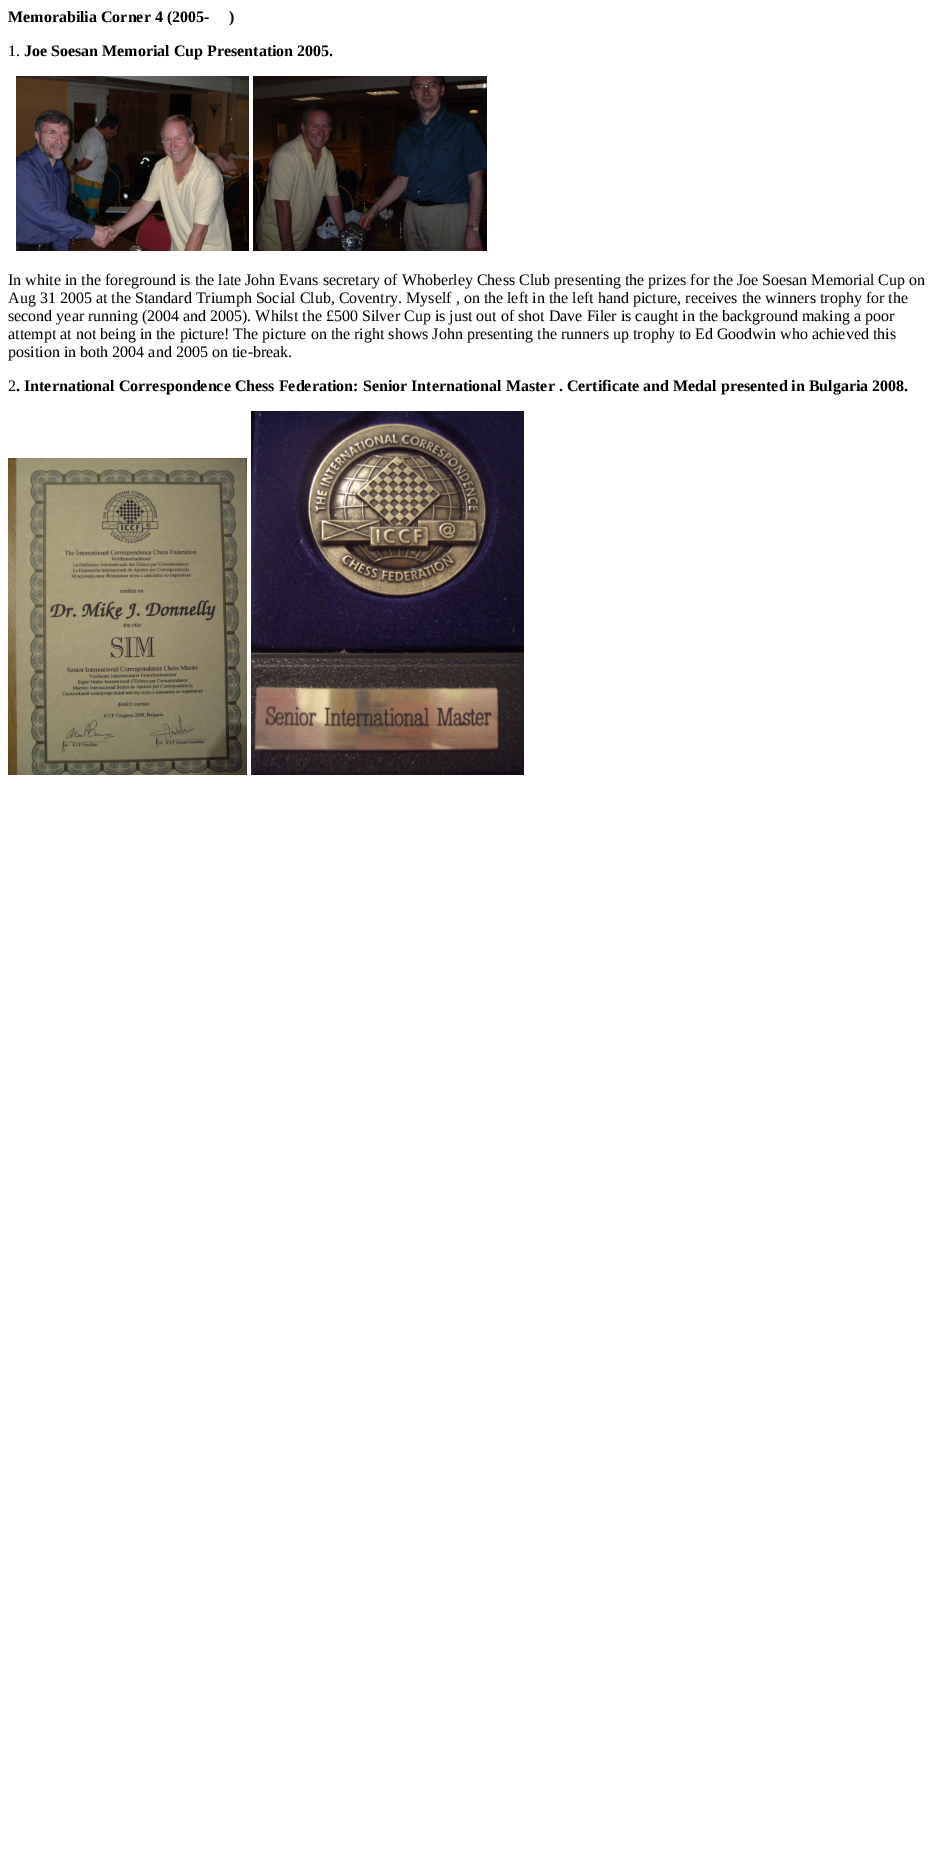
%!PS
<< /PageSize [941 1850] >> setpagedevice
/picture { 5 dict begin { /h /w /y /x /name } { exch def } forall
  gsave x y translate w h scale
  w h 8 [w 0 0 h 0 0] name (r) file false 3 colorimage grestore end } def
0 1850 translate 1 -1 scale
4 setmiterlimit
1 setgray
0 0 941 1850 rectfill
/LiberationSerif-Bold [16 0 0 -16 0 0] selectfont
0 setgray
8 22 moveto (Memorabilia Corner 4 \(2005-     \)) show
/LiberationSerif-Regular [16 0 0 -16 0 0] selectfont
8 56 moveto (1.) show
/LiberationSerif-Bold [16 0 0 -16 0 0] selectfont
24 56 moveto (Joe Soesan Memorial Cup Presentation 2005.) show
(img1.rgb) 16 76 233 175 picture
(img2.rgb) 253 76 234 175 picture
/LiberationSerif-Regular [16 0 0 -16 0 0] selectfont
8 285 moveto (In white in the foreground is the late John Evans secretary of Whoberley Chess Club presenting the prizes for the Joe Soesan Memorial Cup on) show
8 303 moveto (Aug 31 2005 at the Standard Triumph Social Club, Coventry. Myself , on the left in the left hand picture, receives the winners trophy for the) show
8 321 moveto (second year running \(2004 and 2005\). Whilst the £500 Silver Cup is just out of shot Dave Filer is caught in the background making a poor) show
8 339 moveto (attempt at not being in the picture! The picture on the right shows John presenting the runners up trophy to Ed Goodwin who achieved this) show
8 357 moveto (position in both 2004 and 2005 on tie-break.) show
8 391 moveto (2) show
/LiberationSerif-Bold [16 0 0 -16 0 0] selectfont
16 391 moveto (. International Correspondence Chess Federation: Senior International Master . Certificate and Medal presented in Bulgaria 2008.) show
(img3.rgb) 8 458 239 317 picture
(img4.rgb) 251 411 273 364 picture
showpage
